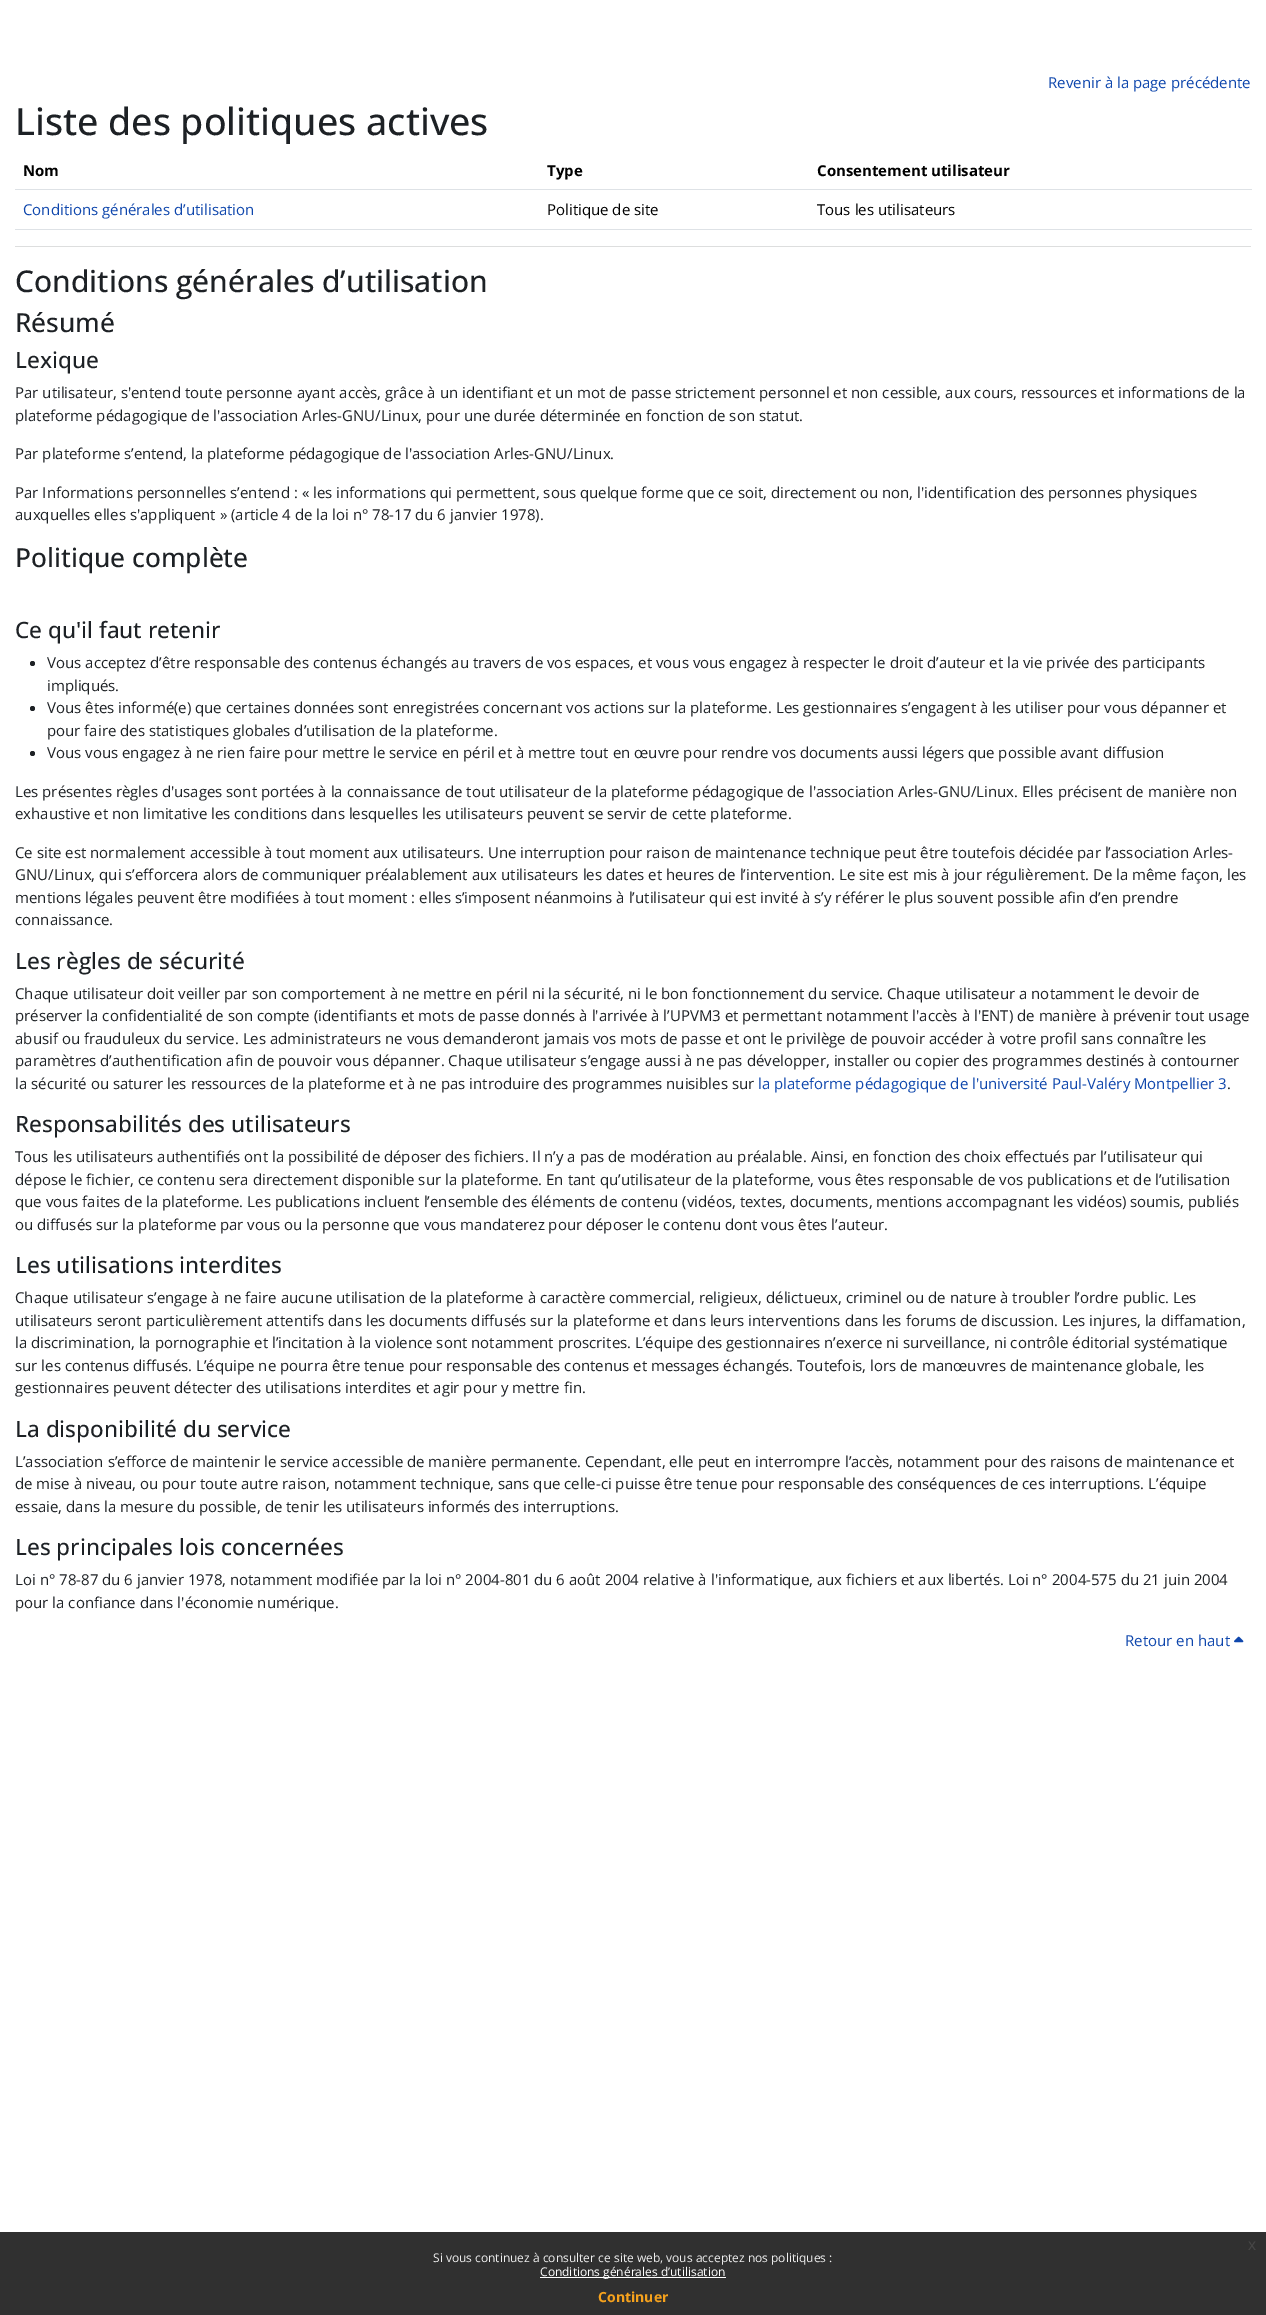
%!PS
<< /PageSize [1266 2315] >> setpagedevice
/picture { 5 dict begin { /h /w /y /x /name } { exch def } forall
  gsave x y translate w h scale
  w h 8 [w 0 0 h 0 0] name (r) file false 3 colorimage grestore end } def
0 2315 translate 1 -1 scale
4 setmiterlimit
1 setgray
0 0 1266 2315 rectfill
/OpenSans-Regular [15 0 0 -15 0 0] selectfont
0.059 0.278 0.678 setrgbcolor
1048 88 moveto (Revenir à la page précédente) show
/OpenSans-Medium [37.5 0 0 -37.5 0 0] selectfont
0.114 0.129 0.145 setrgbcolor
15 135 moveto (Liste des politiques actives) show
/OpenSans-Bold [15 0 0 -15 0 0] selectfont
0 setgray
23 176 moveto (Nom) show
547 176 moveto (Type) show
0.871 0.886 0.902 setrgbcolor
15 189 1237 1 rectfill
0 setgray
817 176 moveto (Consentement utilisateur) show
/OpenSans-Regular [15 0 0 -15 0 0] selectfont
0.059 0.278 0.678 setrgbcolor
23 215 moveto (Conditions générales d’utilisation) show
0 setgray
547 215 moveto (Politique de site) show
0.871 0.886 0.902 setrgbcolor
15 229 1237 1 rectfill
0 setgray
817 215 moveto (Tous les utilisateurs) show
0.867 0.871 0.871 setrgbcolor
15 246 1236 1 rectfill
/OpenSans-Medium [30 0 0 -30 0 0] selectfont
0.114 0.129 0.145 setrgbcolor
15 292 moveto (Conditions générales d’utilisation) show
/OpenSans-Medium [26.25 0 0 -26.25 0 0] selectfont
15 332 moveto (Résumé) show
/OpenSans-Medium [22.5 0 0 -22.5 0 0] selectfont
15 368 moveto (Lexique) show
/OpenSans-Regular [15 0 0 -15 0 0] selectfont
15 398 moveto (Par utilisateur, s'entend toute personne ayant accès, grâce à un identifiant et un mot de passe strictement personnel et non cessible, aux cours, ressources et informations de la) show
15 421 moveto (plateforme pédagogique de l'association Arles-GNU/Linux, pour une durée déterminée en fonction de son statut.) show
15 459 moveto (Par plateforme s’entend, la plateforme pédagogique de l'association Arles-GNU/Linux.) show
15 498 moveto (Par Informations personnelles s’entend : « les informations qui permettent, sous quelque forme que ce soit, directement ou non, l'identification des personnes physiques) show
15 520 moveto (auxquelles elles s'appliquent » \(article 4 de la loi n° 78-17 du 6 janvier 1978\).) show
/OpenSans-Medium [26.25 0 0 -26.25 0 0] selectfont
15 567 moveto (Politique complète) show
/OpenSans-Medium [22.5 0 0 -22.5 0 0] selectfont
15 638 moveto (Ce qu'il faut retenir) show
newpath 32.5 663.5 2.5 0 360 arc closepath fill
/OpenSans-Regular [15 0 0 -15 0 0] selectfont
47 668 moveto (Vous acceptez d’être responsable des contenus échangés au travers de vos espaces, et vous vous engagez à respecter le droit d’auteur et la vie privée des participants) show
47 691 moveto (impliqués.) show
newpath 32.5 708.5 2.5 0 360 arc closepath fill
47 713 moveto (Vous êtes informé\(e\) que certaines données sont enregistrées concernant vos actions sur la plateforme. Les gestionnaires s’engagent à les utiliser pour vous dépanner et) show
47 736 moveto (pour faire des statistiques globales d’utilisation de la plateforme.) show
newpath 32.5 753.5 2.5 0 360 arc closepath fill
47 758 moveto (Vous vous engagez à ne rien faire pour mettre le service en péril et à mettre tout en œuvre pour rendre vos documents aussi légers que possible avant diffusion) show
15 797 moveto (Les présentes règles d'usages sont portées à la connaissance de tout utilisateur de la plateforme pédagogique de l'association Arles-GNU/Linux. Elles précisent de manière non) show
15 819 moveto (exhaustive et non limitative les conditions dans lesquelles les utilisateurs peuvent se servir de cette plateforme.) show
15 858 moveto (Ce site est normalement accessible à tout moment aux utilisateurs. Une interruption pour raison de maintenance technique peut être toutefois décidée par l’association Arles-) show
15 880 moveto (GNU/Linux, qui s’efforcera alors de communiquer préalablement aux utilisateurs les dates et heures de l’intervention. Le site est mis à jour régulièrement. De la même façon, les) show
15 903 moveto (mentions légales peuvent être modifiées à tout moment : elles s’imposent néanmoins à l’utilisateur qui est invité à s’y référer le plus souvent possible afin d’en prendre) show
15 925 moveto (connaissance.) show
/OpenSans-Medium [22.5 0 0 -22.5 0 0] selectfont
15 969 moveto (Les règles de sécurité) show
/OpenSans-Regular [15 0 0 -15 0 0] selectfont
15 999 moveto (Chaque utilisateur doit veiller par son comportement à ne mettre en péril ni la sécurité, ni le bon fonctionnement du service. Chaque utilisateur a notamment le devoir de) show
15 1021 moveto (préserver la confidentialité de son compte \(identifiants et mots de passe donnés à l'arrivée à l’UPVM3 et permettant notamment l'accès à l'ENT\) de manière à prévenir tout usage) show
15 1044 moveto (abusif ou frauduleux du service. Les administrateurs ne vous demanderont jamais vos mots de passe et ont le privilège de pouvoir accéder à votre profil sans connaître les) show
15 1066 moveto (paramètres d’authentification afin de pouvoir vous dépanner. Chaque utilisateur s’engage aussi à ne pas développer, installer ou copier des programmes destinés à contourner) show
15 1089 moveto (la sécurité ou saturer les ressources de la plateforme et à ne pas introduire des programmes nuisibles sur) show
0.059 0.278 0.678 setrgbcolor
758 1089 moveto (la plateforme pédagogique de l'université Paul-Valéry Montpellier 3) show
0.114 0.129 0.145 setrgbcolor
1227 1089 moveto (.) show
/OpenSans-Medium [22.5 0 0 -22.5 0 0] selectfont
15 1132 moveto (Responsabilités des utilisateurs) show
/OpenSans-Regular [15 0 0 -15 0 0] selectfont
15 1162 moveto (Tous les utilisateurs authentifiés ont la possibilité de déposer des fichiers. Il n’y a pas de modération au préalable. Ainsi, en fonction des choix effectués par l’utilisateur qui) show
15 1185 moveto (dépose le fichier, ce contenu sera directement disponible sur la plateforme. En tant qu’utilisateur de la plateforme, vous êtes responsable de vos publications et de l’utilisation) show
15 1207 moveto (que vous faites de la plateforme. Les publications incluent l’ensemble des éléments de contenu \(vidéos, textes, documents, mentions accompagnant les vidéos\) soumis, publiés) show
15 1230 moveto (ou diffusés sur la plateforme par vous ou la personne que vous mandaterez pour déposer le contenu dont vous êtes l’auteur.) show
/OpenSans-Medium [22.5 0 0 -22.5 0 0] selectfont
15 1273 moveto (Les utilisations interdites) show
/OpenSans-Regular [15 0 0 -15 0 0] selectfont
15 1303 moveto (Chaque utilisateur s’engage à ne faire aucune utilisation de la plateforme à caractère commercial, religieux, délictueux, criminel ou de nature à troubler l’ordre public. Les) show
15 1326 moveto (utilisateurs seront particulièrement attentifs dans les documents diffusés sur la plateforme et dans leurs interventions dans les forums de discussion. Les injures, la diffamation,) show
15 1348 moveto (la discrimination, la pornographie et l’incitation à la violence sont notamment proscrites. L’équipe des gestionnaires n’exerce ni surveillance, ni contrôle éditorial systématique) show
15 1371 moveto (sur les contenus diffusés. L’équipe ne pourra être tenue pour responsable des contenus et messages échangés. Toutefois, lors de manœuvres de maintenance globale, les) show
15 1393 moveto (gestionnaires peuvent détecter des utilisations interdites et agir pour y mettre fin.) show
/OpenSans-Medium [22.5 0 0 -22.5 0 0] selectfont
15 1437 moveto (La disponibilité du service) show
/OpenSans-Regular [15 0 0 -15 0 0] selectfont
15 1467 moveto (L’association s’efforce de maintenir le service accessible de manière permanente. Cependant, elle peut en interrompre l’accès, notamment pour des raisons de maintenance et) show
15 1489 moveto (de mise à niveau, ou pour toute autre raison, notamment technique, sans que celle-ci puisse être tenue pour responsable des conséquences de ces interruptions. L’équipe) show
15 1512 moveto (essaie, dans la mesure du possible, de tenir les utilisateurs informés des interruptions.) show
/OpenSans-Medium [22.5 0 0 -22.5 0 0] selectfont
15 1555 moveto (Les principales lois concernées) show
/OpenSans-Regular [15 0 0 -15 0 0] selectfont
15 1585 moveto (Loi n° 78-87 du 6 janvier 1978, notamment modifiée par la loi n° 2004-801 du 6 août 2004 relative à l'informatique, aux fichiers et aux libertés. Loi n° 2004-575 du 21 juin 2004) show
15 1608 moveto (pour la confiance dans l'économie numérique.) show
0.059 0.278 0.678 setrgbcolor
1125 1646 moveto (Retour en haut) show
(img1.rgb) 1234 1636 10 7 picture
0.188 setgray
0 2232 1266 83 rectfill
/LiberationSans-Regular [16 0 0 -16 0 0] selectfont
0.278 setgray
1248 2250 moveto (x) show
/OpenSans-Regular [12 0 0 -12 0 0] selectfont
0.937 setgray
433 2262 moveto (Si vous continuez à consulter ce site web, vous acceptez nos politiques :) show
1 setgray
540 2277 186 1 rectfill
540 2276 moveto (Conditions générales d’utilisation) show
/OpenSans-Bold [14 0 0 -14 0 0] selectfont
0.965 0.635 0.114 setrgbcolor
598 2302 moveto (Continuer) show
showpage
